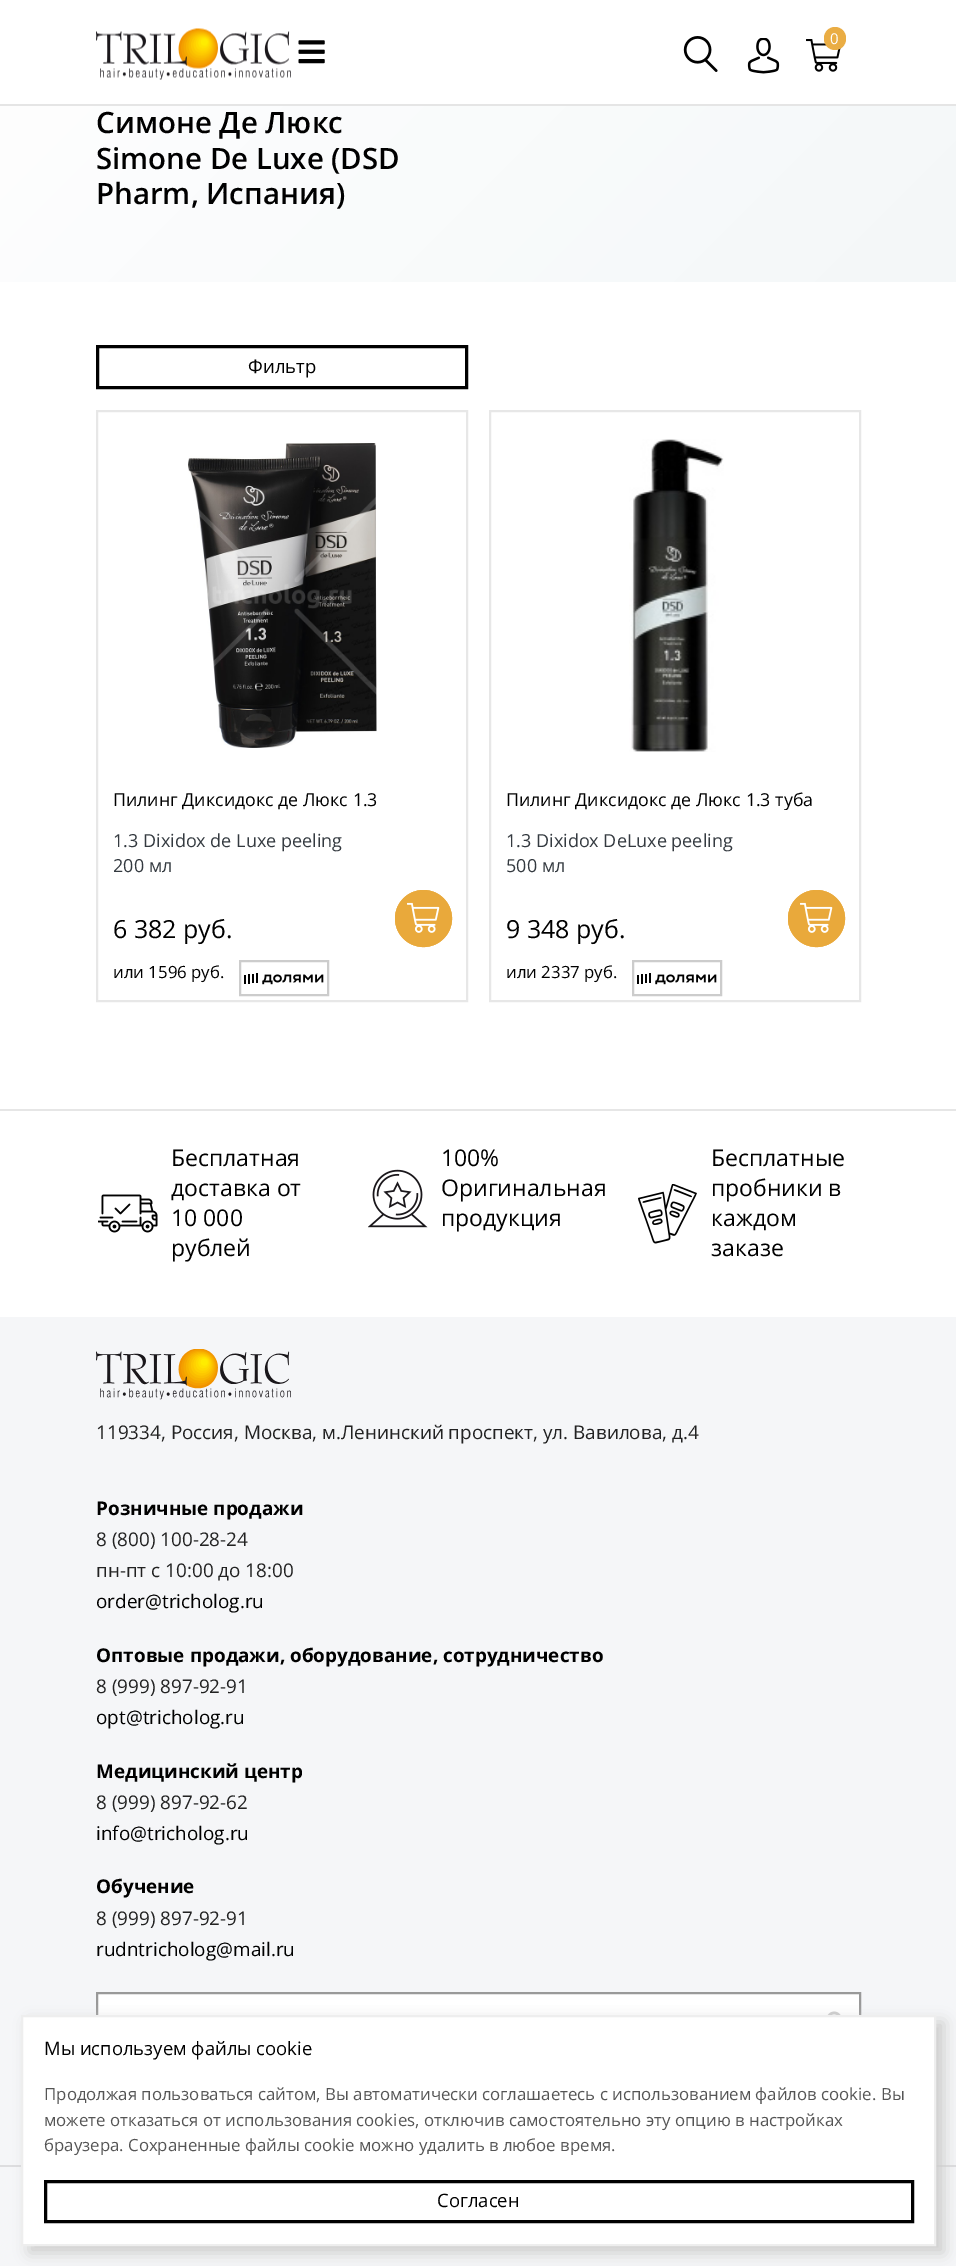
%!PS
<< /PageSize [956 2266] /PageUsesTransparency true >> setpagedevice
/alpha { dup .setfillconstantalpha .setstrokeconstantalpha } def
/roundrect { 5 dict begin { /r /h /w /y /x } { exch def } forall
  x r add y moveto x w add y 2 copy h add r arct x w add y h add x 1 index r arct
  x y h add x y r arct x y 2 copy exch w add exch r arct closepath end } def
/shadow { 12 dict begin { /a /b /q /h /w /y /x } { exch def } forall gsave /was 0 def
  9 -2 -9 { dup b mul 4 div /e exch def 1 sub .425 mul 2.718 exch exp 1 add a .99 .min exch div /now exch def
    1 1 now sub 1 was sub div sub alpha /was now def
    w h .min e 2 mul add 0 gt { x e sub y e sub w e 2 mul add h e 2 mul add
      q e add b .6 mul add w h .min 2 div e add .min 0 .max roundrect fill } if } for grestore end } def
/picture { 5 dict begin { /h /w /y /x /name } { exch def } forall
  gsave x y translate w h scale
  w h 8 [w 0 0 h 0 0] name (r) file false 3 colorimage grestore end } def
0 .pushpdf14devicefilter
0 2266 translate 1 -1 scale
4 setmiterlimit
1 setgray
0 0 956 2266 rectfill
0.898 setgray
0 104 956 2 rectfill
(img1.rgb) 96 28 195 52 picture
(img2.rgb) 298 40 27 24 picture
(img3.rgb) 683 36 35 36 picture
(img4.rgb) 747 38 33 36 picture
(img5.rgb) 806 39 35 33 picture
0.918 0.678 0.267 setrgbcolor
824 27 22 23 11 roundrect fill
/OpenSans-Regular [15 0 0 -15 0 0] selectfont
1 setgray
830 44 moveto (0) show
gsave newpath 0 106 moveto 956 106 lineto 956 282 lineto 0 282 lineto closepath clip newpath
<< /ShadingType 2 /ColorSpace /DeviceRGB /Coords [161 -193 797 443] /Extend [true true] /Function << /FunctionType 2 /Domain [0 1] /C0 [1 1 1] /C1 [0.957 0.969 0.973] /N 1 >> >> shfill grestore
/OpenSans-SemiBold [29.4 0 0 -29.4 0 0] selectfont
0 setgray
96 133 moveto (Симоне Де Люкс) show
96 169 moveto (Simone De Luxe \(DSD) show
96 204 moveto (Pharm, Испания\)) show
3 setlinewidth
97.5 346.5 369 41 rectstroke
/OpenSans-Regular [18.5 0 0 -18.5 0 0] selectfont
248 373 moveto (Фильтр) show
0.906 setgray
2 setlinewidth
97 411 370 590 rectstroke
(img6.rgb) 188 443 189 305 picture
/OpenSans-Regular [17.8 0 0 -17.8 0 0] selectfont
0 setgray
113 806 moveto (Пилинг Диксидокс де Люкс 1.3) show
/OpenSans-Regular [18 0 0 -18 0 0] selectfont
0.204 0.227 0.251 setrgbcolor
113 847 moveto (1.3 Dixidox de Luxe peeling) show
113 872 moveto (200 мл) show
/OpenSans-Regular [25 0 0 -25 0 0] selectfont
0 setgray
113 938 moveto (6 382 руб.) show
0.914 0.663 0.231 setrgbcolor
newpath 423.5 918.5 28.5 0 360 arc closepath fill
(img7.rgb) 407 902 33 31 picture
3 setlinewidth
newpath 423.5 918.5 27 0 360 arc closepath stroke
/OpenSans-Regular [16.8 0 0 -16.8 0 0] selectfont
0 setgray
113 978 moveto (или 1596 руб.) show
(img8.rgb) 244 973 80 12 picture
0.8 setgray
2 setlinewidth
240 961 88 34 rectstroke
0.906 setgray
490 411 370 590 rectstroke
(img9.rgb) 629 439 95 313 picture
gsave
506 788 339 22 rectclip
/OpenSans-Regular [17.8 0 0 -17.8 0 0] selectfont
0 setgray
506 806 moveto (Пилинг Диксидокс де Люкс 1.3 туба) show
grestore
/OpenSans-Regular [18 0 0 -18 0 0] selectfont
0.204 0.227 0.251 setrgbcolor
506 847 moveto (1.3 Dixidox DeLuxe peeling) show
506 872 moveto (500 мл) show
/OpenSans-Regular [25 0 0 -25 0 0] selectfont
0 setgray
506 938 moveto (9 348 руб.) show
0.914 0.663 0.231 setrgbcolor
newpath 816.5 918.5 28.5 0 360 arc closepath fill
(img7.rgb) 800 902 33 31 picture
3 setlinewidth
newpath 816.5 918.5 27 0 360 arc closepath stroke
/OpenSans-Regular [16.8 0 0 -16.8 0 0] selectfont
0 setgray
506 978 moveto (или 2337 руб.) show
(img8.rgb) 637 973 80 12 picture
0.8 setgray
2 setlinewidth
633 961 88 34 rectstroke
0.902 setgray
0 1109 956 2 rectfill
(img10.rgb) 98 1194 60 39 picture
/OpenSans-Regular [23 0 0 -23 0 0] selectfont
0 setgray
171 1166 moveto (Бесплатная) show
171 1196 moveto (доставка от) show
171 1226 moveto (10 000) show
171 1256 moveto (рублей) show
(img11.rgb) 368 1169 60 59 picture
441 1166 moveto (100%) show
441 1196 moveto (Оригинальная) show
441 1226 moveto (продукция) show
(img12.rgb) 638 1184 59 60 picture
711 1166 moveto (Бесплатные) show
711 1196 moveto (пробники в) show
711 1226 moveto (каждом) show
711 1256 moveto (заказе) show
0.961 0.965 0.973 setrgbcolor
0 1317 956 949 rectfill
(img13.rgb) 96 1349 195 51 picture
/OpenSans-Regular [18.9 0 0 -18.9 0 0] selectfont
0.133 setgray
96 1439 moveto (119334, Россия, Москва, м.Ленинский проспект, ул. Вавилова, д.4) show
/OpenSans-Bold [18.9 0 0 -18.9 0 0] selectfont
0 setgray
96 1515 moveto (Розничные продажи) show
/OpenSans-Regular [18.9 0 0 -18.9 0 0] selectfont
0.133 setgray
96 1546 moveto (8 \(800\) 100-28-24) show
96 1577 moveto (пн-пт с 10:00 до 18:00) show
0 setgray
96 1608 moveto (order@tricholog.ru) show
/OpenSans-Bold [18.9 0 0 -18.9 0 0] selectfont
96 1662 moveto (Оптовые продажи, оборудование, cотрудничество) show
/OpenSans-Regular [18.9 0 0 -18.9 0 0] selectfont
0.133 setgray
96 1693 moveto (8 \(999\) 897-92-91) show
0 setgray
96 1724 moveto (opt@tricholog.ru) show
/OpenSans-Bold [18.9 0 0 -18.9 0 0] selectfont
96 1778 moveto (Медицинский центр) show
/OpenSans-Regular [18.9 0 0 -18.9 0 0] selectfont
0.133 setgray
96 1809 moveto (8 \(999\) 897-92-62) show
0 setgray
96 1840 moveto (info@tricholog.ru) show
/OpenSans-Bold [18.9 0 0 -18.9 0 0] selectfont
96 1893 moveto (Обучение) show
/OpenSans-Regular [18.9 0 0 -18.9 0 0] selectfont
0.133 setgray
96 1925 moveto (8 \(999\) 897-92-91) show
0 setgray
96 1956 moveto (rudntricholog@mail.ru) show
1 setgray
98 1994 761 21 rectfill
0.6 setgray
97 1993 763 58 rectstroke
(img14.rgb) 827 2011 14 4 picture
0.867 0.867 0.875 setrgbcolor
0 2165 956 2 rectfill
0.8 setgray
29 2022 915 231 0 7.5 1 shadow
1 setgray
newpath 22 2016 moveto 935 2016 lineto 935 2245 lineto 22 2245 lineto closepath gsave fill grestore
0.933 setgray
stroke
/OpenSans-Regular [18.5 0 0 -18.5 0 0] selectfont
0 setgray
44 2055 moveto (Мы используем файлы cookie) show
/OpenSans-Regular [16.8 0 0 -16.8 0 0] selectfont
0.333 setgray
44 2100 moveto (Продолжая пользоваться сайтом, Вы автоматически соглашаетесь с использованием файлов cookie. Вы) show
44 2126 moveto (можете отказаться от использования cookies, отключив самостоятельно эту опцию в настройках) show
44 2151 moveto (браузера. Сохраненные файлы cookie можно удалить в любое время.) show
0 setgray
3 setlinewidth
45.5 2181.5 867 40 rectstroke
/OpenSans-Regular [18.5 0 0 -18.5 0 0] selectfont
437 2207 moveto (Согласен) show
.poppdf14devicefilter showpage
